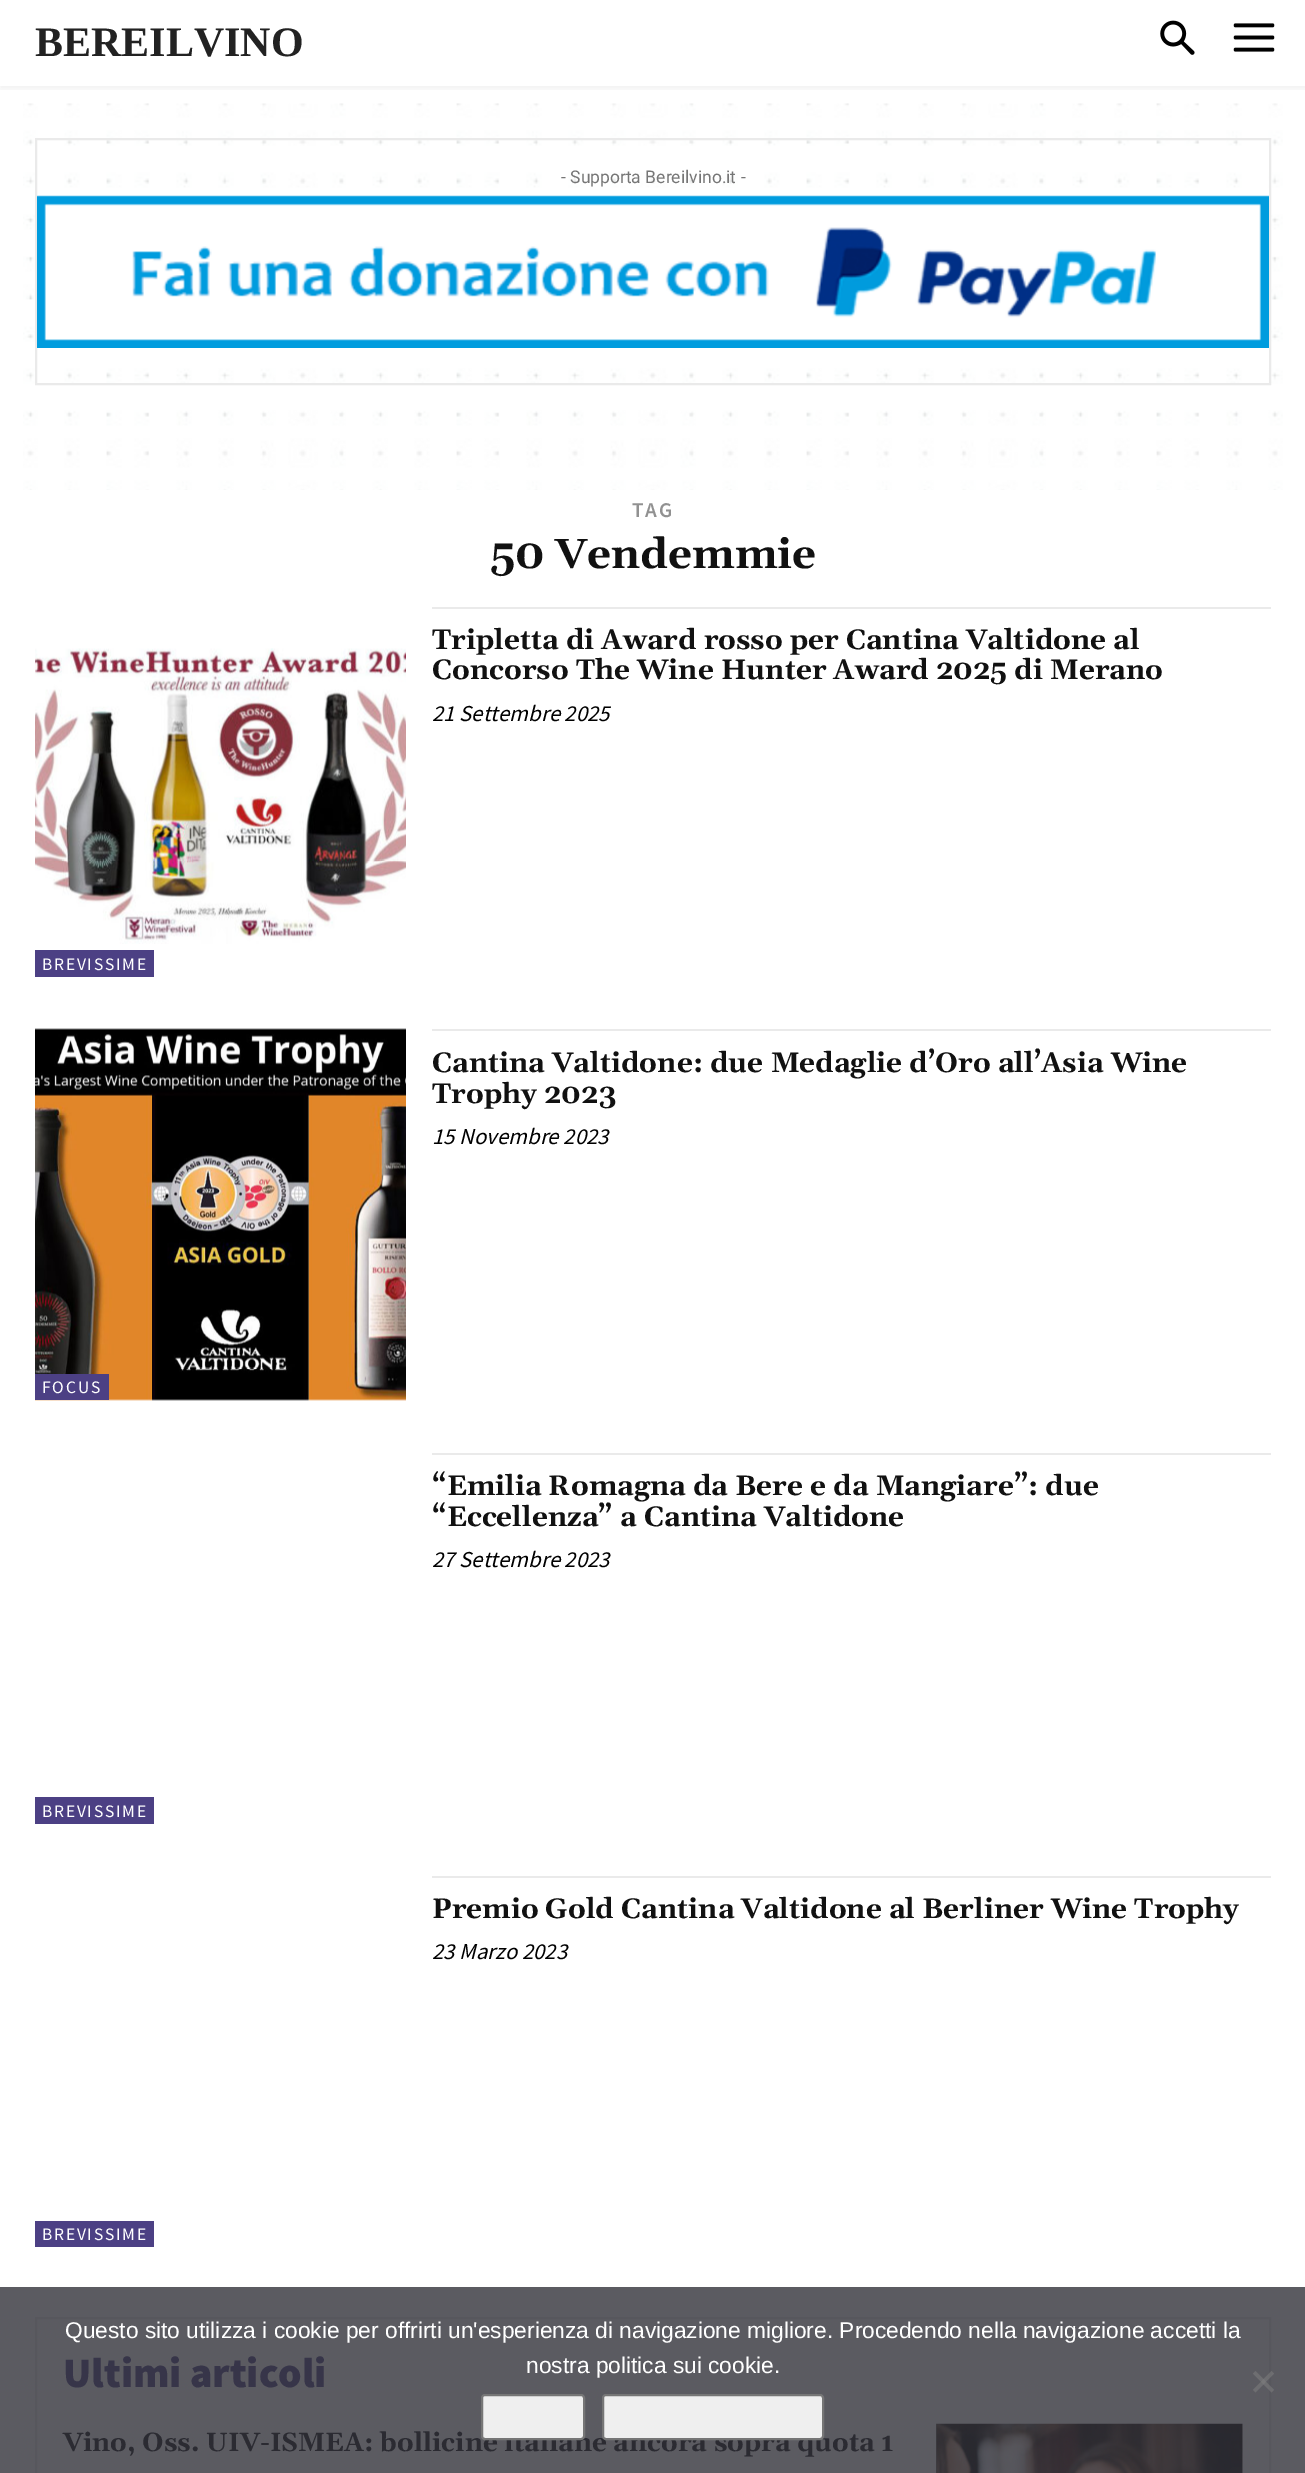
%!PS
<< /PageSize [1305 2473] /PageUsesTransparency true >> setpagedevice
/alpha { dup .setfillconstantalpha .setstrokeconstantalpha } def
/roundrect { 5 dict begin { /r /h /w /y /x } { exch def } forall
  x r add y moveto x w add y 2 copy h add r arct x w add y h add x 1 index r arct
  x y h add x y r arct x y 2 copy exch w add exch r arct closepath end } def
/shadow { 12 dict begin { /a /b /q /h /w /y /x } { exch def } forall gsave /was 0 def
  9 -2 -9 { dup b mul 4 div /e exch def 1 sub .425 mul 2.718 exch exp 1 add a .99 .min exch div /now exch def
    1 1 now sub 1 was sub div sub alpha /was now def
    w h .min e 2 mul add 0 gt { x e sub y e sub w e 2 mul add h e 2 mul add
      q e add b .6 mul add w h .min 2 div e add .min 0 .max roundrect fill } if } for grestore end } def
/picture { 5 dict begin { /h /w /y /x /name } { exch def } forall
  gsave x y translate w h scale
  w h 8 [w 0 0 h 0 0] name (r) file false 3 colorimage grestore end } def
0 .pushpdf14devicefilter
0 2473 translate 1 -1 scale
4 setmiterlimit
1 setgray
0 0 1305 2473 rectfill
0.357 0.357 0.38 setrgbcolor
0 2287 1305 186 rectfill
(img1.rgb) 1160 20 35 35 picture
(img2.rgb) 1233 23 42 29 picture
gsave
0 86 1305 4 rectclip
0 setgray
0 4 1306 85 0 3.5 0.06 shadow
grestore
/LiberationSerif-Bold [42 0 0 -42 0 0] selectfont
0.133 setgray
35 56 moveto (BEREILVINO) show
(img3.rgb) 23 103 1260 387 picture
0.918 setgray
2 setlinewidth
36 139 1234 245 rectstroke
/Roboto-Regular [17.5 0 0 -17.5 0 0] selectfont
0.463 setgray
561 183 moveto (- Supporta Bereilvino.it -) show
(img4.rgb) 37 195 1232 153 picture
/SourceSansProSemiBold-SemiBold [21 0 0 -21 0 0] selectfont
0.569 setgray
632 517 moveto 1.75 0 (TAG) ashow
/Gelasio-Bold [42 0 0 -42 0 0] selectfont
0.067 setgray
490 568 moveto (50 Vendemmie) show
0.918 setgray
432 607 839 2 rectfill
/Gelasio-Bold [28 0 0 -28 0 0] selectfont
0.067 setgray
432 649 moveto (Tripletta di Award rosso per Cantina Valtidone al) show
432 679 moveto (Concorso The Wine Hunter Award 2025 di Merano) show
/SourceSansPro-Italic [22.75 0 0 -22.75 0 0] selectfont
0 setgray
432 721 moveto (21 Settembre 2025) show
(img5.rgb) 35 648 371 296 picture
0.298 0.251 0.518 setrgbcolor
35 950 119 27 rectfill
/SourceSansPro-Regular [17.5 0 0 -17.5 0 0] selectfont
1 setgray
42 970 moveto 1.75 0 (BREVISSIME) ashow
0.918 setgray
432 1029 839 2 rectfill
/Gelasio-Bold [28 0 0 -28 0 0] selectfont
0.067 setgray
432 1072 moveto (Cantina Valtidone: due Medaglie d’Oro all’Asia Wine) show
432 1103 moveto (Trophy 2023) show
/SourceSansPro-Italic [22.75 0 0 -22.75 0 0] selectfont
0 setgray
432 1144 moveto (15 Novembre 2023) show
(img6.rgb) 35 1028 371 373 picture
0.298 0.251 0.518 setrgbcolor
35 1374 74 26 rectfill
/SourceSansPro-Regular [17.5 0 0 -17.5 0 0] selectfont
1 setgray
42 1393 moveto 1.75 0 (FOCUS) ashow
0.918 setgray
432 1453 839 2 rectfill
/Gelasio-Bold [28 0 0 -28 0 0] selectfont
0.067 setgray
432 1495 moveto (“Emilia Romagna da Bere e da Mangiare”: due) show
432 1526 moveto (“Eccellenza” a Cantina Valtidone) show
/SourceSansPro-Italic [22.75 0 0 -22.75 0 0] selectfont
0 setgray
432 1567 moveto (27 Settembre 2023) show
0.298 0.251 0.518 setrgbcolor
35 1797 119 27 rectfill
/SourceSansPro-Regular [17.5 0 0 -17.5 0 0] selectfont
1 setgray
42 1817 moveto 1.75 0 (BREVISSIME) ashow
0.918 setgray
432 1876 839 2 rectfill
/Gelasio-Bold [28 0 0 -28 0 0] selectfont
0.067 setgray
432 1918 moveto (Premio Gold Cantina Valtidone al Berliner Wine Trophy) show
/SourceSansPro-Italic [22.75 0 0 -22.75 0 0] selectfont
0 setgray
432 1959 moveto (23 Marzo 2023) show
0.298 0.251 0.518 setrgbcolor
35 2221 119 26 rectfill
/SourceSansPro-Regular [17.5 0 0 -17.5 0 0] selectfont
1 setgray
42 2240 moveto 1.75 0 (BREVISSIME) ashow
0.341 0.341 0.365 setrgbcolor
36 2318 1234 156 rectstroke
/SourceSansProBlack-Black [42 0 0 -42 0 0] selectfont
0.216 0.208 0.286 setrgbcolor
63 2387 moveto (Ultimi articoli) show
/Gelasio-Bold [26.25 0 0 -26.25 0 0] selectfont
0.169 0.169 0.196 setrgbcolor
63 2451 moveto (Vino, Oss. UIV-ISMEA: bollicine italiane ancora sopra quota 1) show
(img7.rgb) 936 2423 307 50 picture
/LiberationSans-Regular [22.75 0 0 -22.75 0 0] selectfont
1 setgray
65 2338 moveto (Questo sito utilizza i cookie per offrirti un'esperienza di navigazione migliore. Procedendo nella navigazione accetti la) show
526 2373 moveto (nostra politica sui cookie.) show
0.5 alpha
0.502 setgray
newpath 1271.5 2371 moveto 1274 2373.5 lineto 1255.5 2392.5 lineto 1253 2390 lineto closepath fill
newpath 1253 2373.5 moveto 1255.5 2371 lineto 1274 2390 lineto 1271.5 2392.5 lineto closepath fill
1 alpha
0.937 setgray
482 2395 102 44 3 roundrect gsave fill grestore
0.463 setgray
stroke
0.937 setgray
603 2395 220 44 3 roundrect gsave fill grestore
0.463 setgray
stroke
.poppdf14devicefilter showpage
